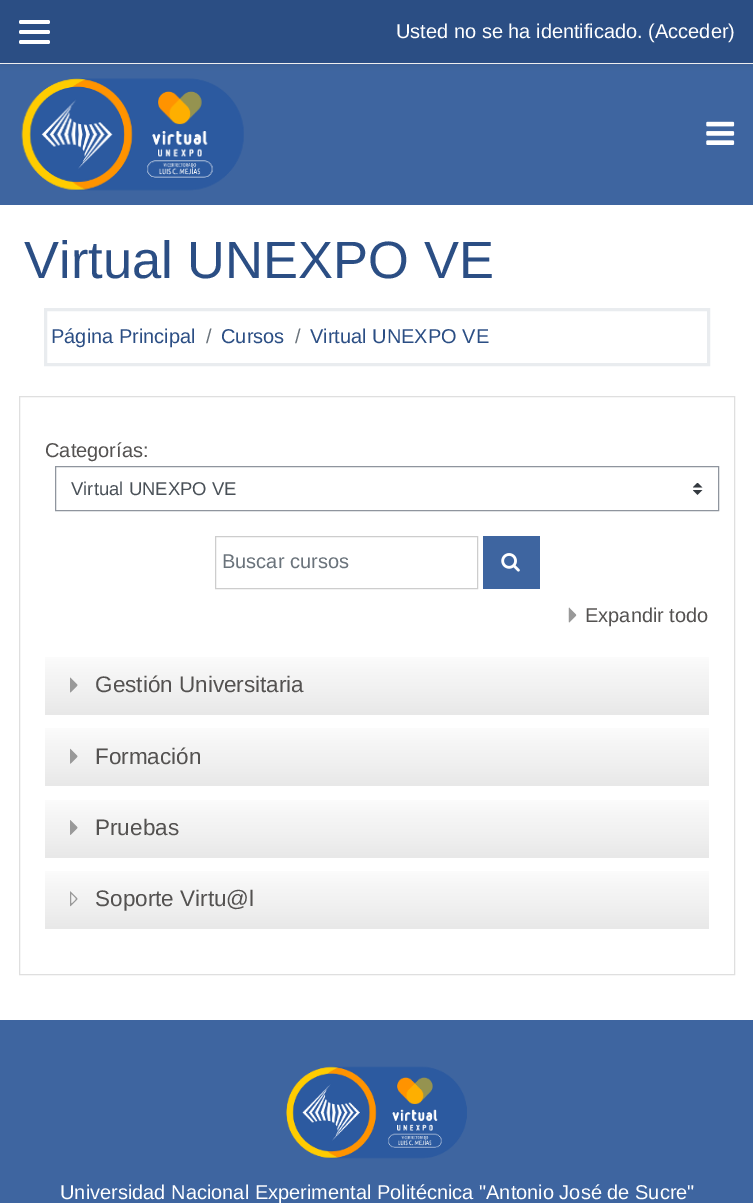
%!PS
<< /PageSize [753 1203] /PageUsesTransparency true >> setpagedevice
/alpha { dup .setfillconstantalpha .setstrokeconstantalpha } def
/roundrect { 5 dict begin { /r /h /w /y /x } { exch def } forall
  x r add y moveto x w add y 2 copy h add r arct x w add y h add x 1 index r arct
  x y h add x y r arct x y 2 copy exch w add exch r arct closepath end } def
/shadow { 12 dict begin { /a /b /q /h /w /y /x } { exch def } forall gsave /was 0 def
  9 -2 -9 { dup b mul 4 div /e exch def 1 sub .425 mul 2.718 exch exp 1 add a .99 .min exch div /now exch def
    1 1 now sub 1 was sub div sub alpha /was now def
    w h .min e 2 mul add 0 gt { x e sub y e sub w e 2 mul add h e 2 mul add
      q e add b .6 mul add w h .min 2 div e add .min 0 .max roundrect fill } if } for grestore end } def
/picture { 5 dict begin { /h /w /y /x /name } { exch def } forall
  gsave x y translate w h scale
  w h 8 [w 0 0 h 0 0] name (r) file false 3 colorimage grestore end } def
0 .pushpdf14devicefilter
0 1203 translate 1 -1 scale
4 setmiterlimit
1 setgray
0 0 753 1203 rectfill
0.243 0.396 0.627 setrgbcolor
0 64 753 141 rectfill
0 setgray
0 3 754 62 0 2.5 0.08 shadow
0.169 0.306 0.518 setrgbcolor
0 0 753 63 rectfill
1 setgray
19 20 31 4 2 roundrect fill
19 30 31 4 2 roundrect fill
19 40 31 4 2 roundrect fill
/LiberationSans-Regular [20 0 0 -20 0 0] selectfont
396 38 moveto (Usted no se ha identificado. \(Acceder\)) show
(img1.rgb) 21 78 223 113 picture
(img2.rgb) 706 121 29 24 picture
/LiberationSans-Regular [52.5 0 0 -52.5 0 0] selectfont
0.169 0.306 0.518 setrgbcolor
24 278 moveto (Virtual UNEXPO VE) show
0.914 0.925 0.937 setrgbcolor
3 setlinewidth
45.5 309.5 663 55 rectstroke
/LiberationSans-Regular [20 0 0 -20 0 0] selectfont
0.169 0.306 0.518 setrgbcolor
51 343 moveto (Página Principal) show
0.416 0.451 0.482 setrgbcolor
206 343 moveto (/) show
0.169 0.306 0.518 setrgbcolor
221 343 moveto (Cursos) show
0.416 0.451 0.482 setrgbcolor
295 343 moveto (/) show
0.169 0.306 0.518 setrgbcolor
310 343 moveto (Virtual UNEXPO VE) show
0.875 setgray
1 setlinewidth
19.5 396.5 715 578 rectstroke
0.329 0.322 0.318 setrgbcolor
45 457 moveto (Categorías:) show
(img3.rgb) 693 483 10 12 picture
0.561 0.584 0.62 setrgbcolor
55.5 466.5 663 44 rectstroke
/LiberationSans-Regular [18.5 0 0 -18.5 0 0] selectfont
0.286 0.314 0.341 setrgbcolor
71 495 moveto (Virtual UNEXPO VE) show
0.804 setgray
215.5 536.5 262 52 rectstroke
/LiberationSans-Regular [20 0 0 -20 0 0] selectfont
0.416 0.451 0.482 setrgbcolor
222 568 moveto (Buscar cursos) show
0.243 0.396 0.627 setrgbcolor
483 536 57 53 rectfill
(img4.rgb) 501 553 19 19 picture
(img5.rgb) 568 607 9 16 picture
0.329 0.322 0.318 setrgbcolor
585 622 moveto (Expandir todo) show
gsave newpath 45 657 moveto 709 657 lineto 709 715 lineto 45 715 lineto closepath clip newpath
<< /ShadingType 2 /ColorSpace /DeviceRGB /Coords [377 655 377 715] /Extend [true true] /Function << /FunctionType 3 /Domain [0 1] /Functions [<< /FunctionType 2 /Domain [0 1] /C0 [1 1 1] /C1 [0.984 0.984 0.984] /N 1 >> << /FunctionType 2 /Domain [0 1] /C0 [0.984 0.984 0.984] /C1 [0.91 0.91 0.91] /N 1 >>] /Bounds [0.05] /Encode [0 1 0 1] >> >> shfill grestore
(img6.rgb) 70 677 8 16 picture
/LiberationSans-Regular [22.5 0 0 -22.5 0 0] selectfont
95 692 moveto (Gestión Universitaria) show
gsave newpath 45 728 moveto 709 728 lineto 709 786 lineto 45 786 lineto closepath clip newpath
<< /ShadingType 2 /ColorSpace /DeviceRGB /Coords [377 726 377 786] /Extend [true true] /Function << /FunctionType 3 /Domain [0 1] /Functions [<< /FunctionType 2 /Domain [0 1] /C0 [1 1 1] /C1 [0.984 0.984 0.984] /N 1 >> << /FunctionType 2 /Domain [0 1] /C0 [0.984 0.984 0.984] /C1 [0.91 0.91 0.91] /N 1 >>] /Bounds [0.05] /Encode [0 1 0 1] >> >> shfill grestore
(img7.rgb) 70 748 8 16 picture
95 764 moveto (Formación) show
gsave newpath 45 800 moveto 709 800 lineto 709 858 lineto 45 858 lineto closepath clip newpath
<< /ShadingType 2 /ColorSpace /DeviceRGB /Coords [377 798 377 858] /Extend [true true] /Function << /FunctionType 3 /Domain [0 1] /Functions [<< /FunctionType 2 /Domain [0 1] /C0 [1 1 1] /C1 [0.984 0.984 0.984] /N 1 >> << /FunctionType 2 /Domain [0 1] /C0 [0.984 0.984 0.984] /C1 [0.91 0.91 0.91] /N 1 >>] /Bounds [0.05] /Encode [0 1 0 1] >> >> shfill grestore
(img8.rgb) 70 820 8 15 picture
95 835 moveto (Pruebas) show
gsave newpath 45 871 moveto 709 871 lineto 709 929 lineto 45 929 lineto closepath clip newpath
<< /ShadingType 2 /ColorSpace /DeviceRGB /Coords [377 869 377 929] /Extend [true true] /Function << /FunctionType 3 /Domain [0 1] /Functions [<< /FunctionType 2 /Domain [0 1] /C0 [1 1 1] /C1 [0.984 0.984 0.984] /N 1 >> << /FunctionType 2 /Domain [0 1] /C0 [0.984 0.984 0.984] /C1 [0.91 0.91 0.91] /N 1 >>] /Bounds [0.05] /Encode [0 1 0 1] >> >> shfill grestore
(img9.rgb) 70 891 8 16 picture
95 906 moveto (Soporte Virtu@l) show
0.243 0.396 0.627 setrgbcolor
0 1020 753 183 rectfill
(img10.rgb) 286 1066 181 93 picture
/LiberationSans-Regular [20 0 0 -20 0 0] selectfont
1 setgray
60 1199 moveto (Universidad Nacional Experimental Politécnica "Antonio José de Sucre") show
.poppdf14devicefilter showpage
